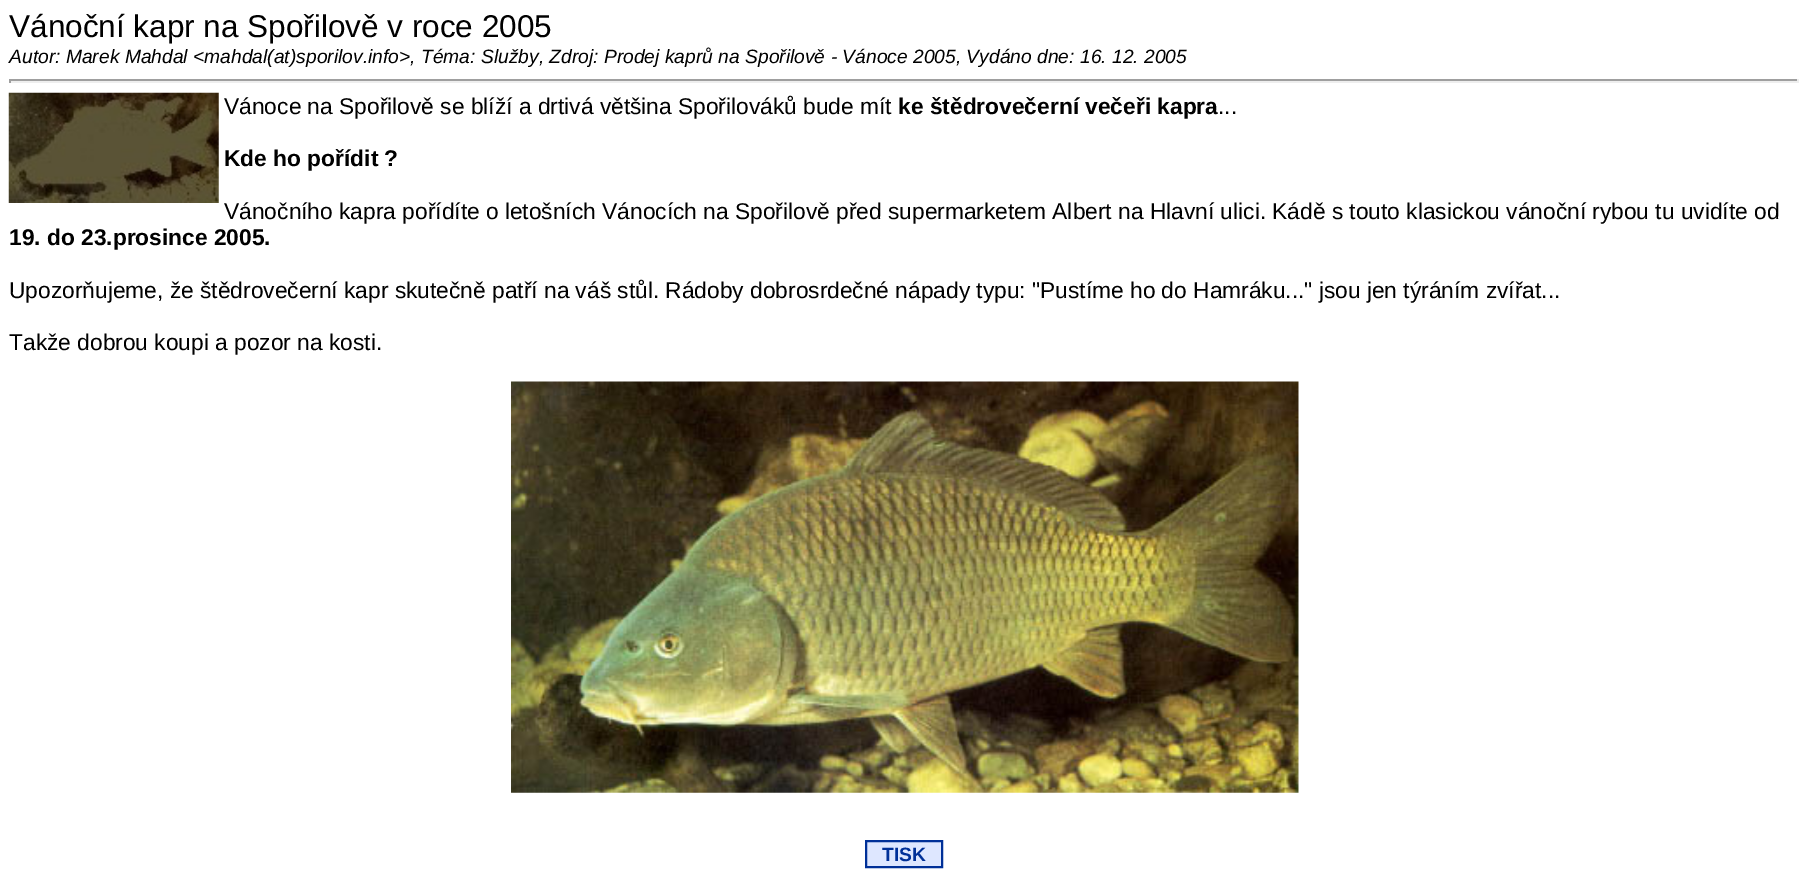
%!PS
<< /PageSize [1807 869] >> setpagedevice
/picture { 5 dict begin { /h /w /y /x /name } { exch def } forall
  gsave x y translate w h scale
  w h 8 [w 0 0 h 0 0] name (r) file false 3 colorimage grestore end } def
0 869 translate 1 -1 scale
4 setmiterlimit
1 setgray
0 0 1807 869 rectfill
/LiberationSans-Regular [31.5 0 0 -31.5 0 0] selectfont
0 setgray
9 37 moveto (Vánoční kapr na Spořilově v roce 2005) show
/LiberationSans-Italic [19.25 0 0 -19.25 0 0] selectfont
9 63 moveto (Autor: Marek Mahdal <mahdal\(at\)sporilov.info>, Téma: Služby, Zdroj: Prodej kaprů na Spořilově - Vánoce 2005, Vydáno dne: 16. 12. 2005) show
0.624 setgray
9 79 1790 2 rectfill
0.933 setgray
1797 79 2 4 rectfill
9 81 1790 2 rectfill
0.624 setgray
9 79 2 4 rectfill
(img1.rgb) 8 92 211 111 picture
/LiberationSans-Regular [22.75 0 0 -22.75 0 0] selectfont
0 setgray
224 114 moveto (Vánoce na Spořilově se blíží a drtivá většina Spořilováků bude mít) show
/LiberationSans-Bold [22.75 0 0 -22.75 0 0] selectfont
898 114 moveto (ke štědrovečerní večeři kapra) show
/LiberationSans-Regular [22.75 0 0 -22.75 0 0] selectfont
1218 114 moveto (...) show
/LiberationSans-Bold [22.75 0 0 -22.75 0 0] selectfont
224 166 moveto (Kde ho pořídit ?) show
/LiberationSans-Regular [22.75 0 0 -22.75 0 0] selectfont
224 219 moveto (Vánočního kapra pořídíte o letošních Vánocích na Spořilově před supermarketem Albert na Hlavní ulici. Kádě s touto klasickou vánoční rybou tu uvidíte od) show
/LiberationSans-Bold [22.75 0 0 -22.75 0 0] selectfont
9 245 moveto (19. do 23.prosince 2005.) show
/LiberationSans-Regular [22.75 0 0 -22.75 0 0] selectfont
9 298 moveto (Upozorňujeme, že štědrovečerní kapr skutečně patří na váš stůl. Rádoby dobrosrdečné nápady typu: "Pustíme ho do Hamráku..." jsou jen týráním zvířat...) show
9 350 moveto (Takže dobrou koupi a pozor na kosti.) show
(img2.rgb) 511 381 788 412 picture
0.871 0.906 1 setrgbcolor
newpath 866 841 moveto 942 841 lineto 942 867 lineto 866 867 lineto closepath gsave fill grestore
0 0.188 0.596 setrgbcolor
2 setlinewidth
stroke
/LiberationSans-Bold [19.25 0 0 -19.25 0 0] selectfont
882 861 moveto (TISK) show
showpage
